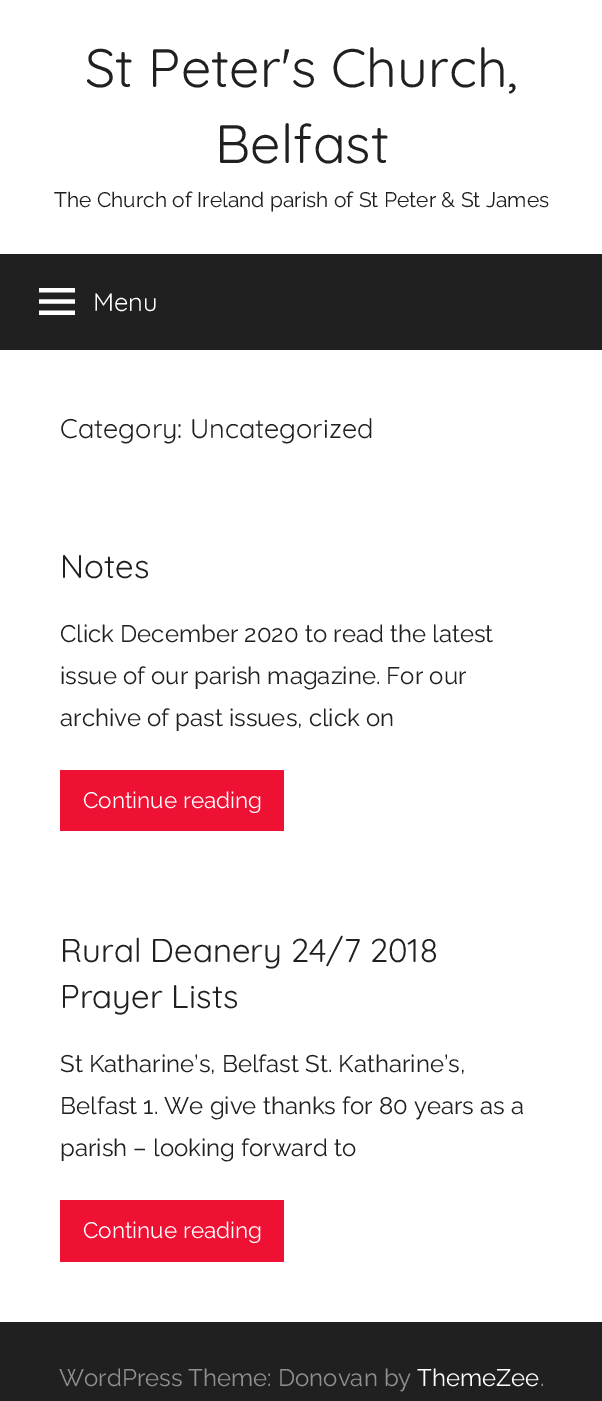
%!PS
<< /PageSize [602 1401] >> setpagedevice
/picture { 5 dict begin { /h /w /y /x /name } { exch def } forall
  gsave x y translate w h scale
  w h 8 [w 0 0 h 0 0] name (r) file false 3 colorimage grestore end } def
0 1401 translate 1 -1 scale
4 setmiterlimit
1 setgray
0 0 602 1401 rectfill
/Quicksand-Light [54 0 0 -54 0 0] selectfont
0.125 setgray
85 87 moveto (St Peter's Church,) show
215 163 moveto (Belfast) show
/Raleway-Thin [21 0 0 -21 0 0] selectfont
54 207 moveto (The Church of Ireland parish of St Peter & St James) show
0 254 602 96 rectfill
(img1.rgb) 39 288 36 27 picture
/Quicksand-Light [25.5 0 0 -25.5 0 0] selectfont
1 setgray
93 311 moveto (Menu) show
/Quicksand-Light [27 0 0 -27 0 0] selectfont
0.125 setgray
60 438 moveto (Category: Uncategorized) show
/Quicksand-Light [33 0 0 -33 0 0] selectfont
60 578 moveto (Notes) show
/Raleway-Thin [24 0 0 -24 0 0] selectfont
60 642 moveto (Click December 2020 to read the latest) show
60 684 moveto (issue of our parish magazine. For our) show
60 726 moveto (archive of past issues, click on) show
0.933 0.067 0.2 setrgbcolor
60 770 224 61 rectfill
/Raleway-Thin [22.5 0 0 -22.5 0 0] selectfont
1 setgray
83 808 moveto (Continue reading) show
/Quicksand-Light [33 0 0 -33 0 0] selectfont
0.125 setgray
60 962 moveto (Rural Deanery 24/7 2018) show
60 1008 moveto (Prayer Lists) show
/Raleway-Thin [24 0 0 -24 0 0] selectfont
60 1072 moveto (St Katharine’s, Belfast St. Katharine’s,) show
60 1114 moveto (Belfast 1. We give thanks for 80 years as a) show
60 1156 moveto (parish – looking forward to) show
0.933 0.067 0.2 setrgbcolor
60 1200 224 62 rectfill
/Raleway-Thin [22.5 0 0 -22.5 0 0] selectfont
1 setgray
83 1238 moveto (Continue reading) show
0.125 setgray
0 1322 602 79 rectfill
/Raleway-Thin [24 0 0 -24 0 0] selectfont
0.565 setgray
59 1386 moveto (WordPress Theme: Donovan by) show
1 setgray
417 1386 moveto (ThemeZee) show
0.565 setgray
540 1386 moveto (.) show
showpage
